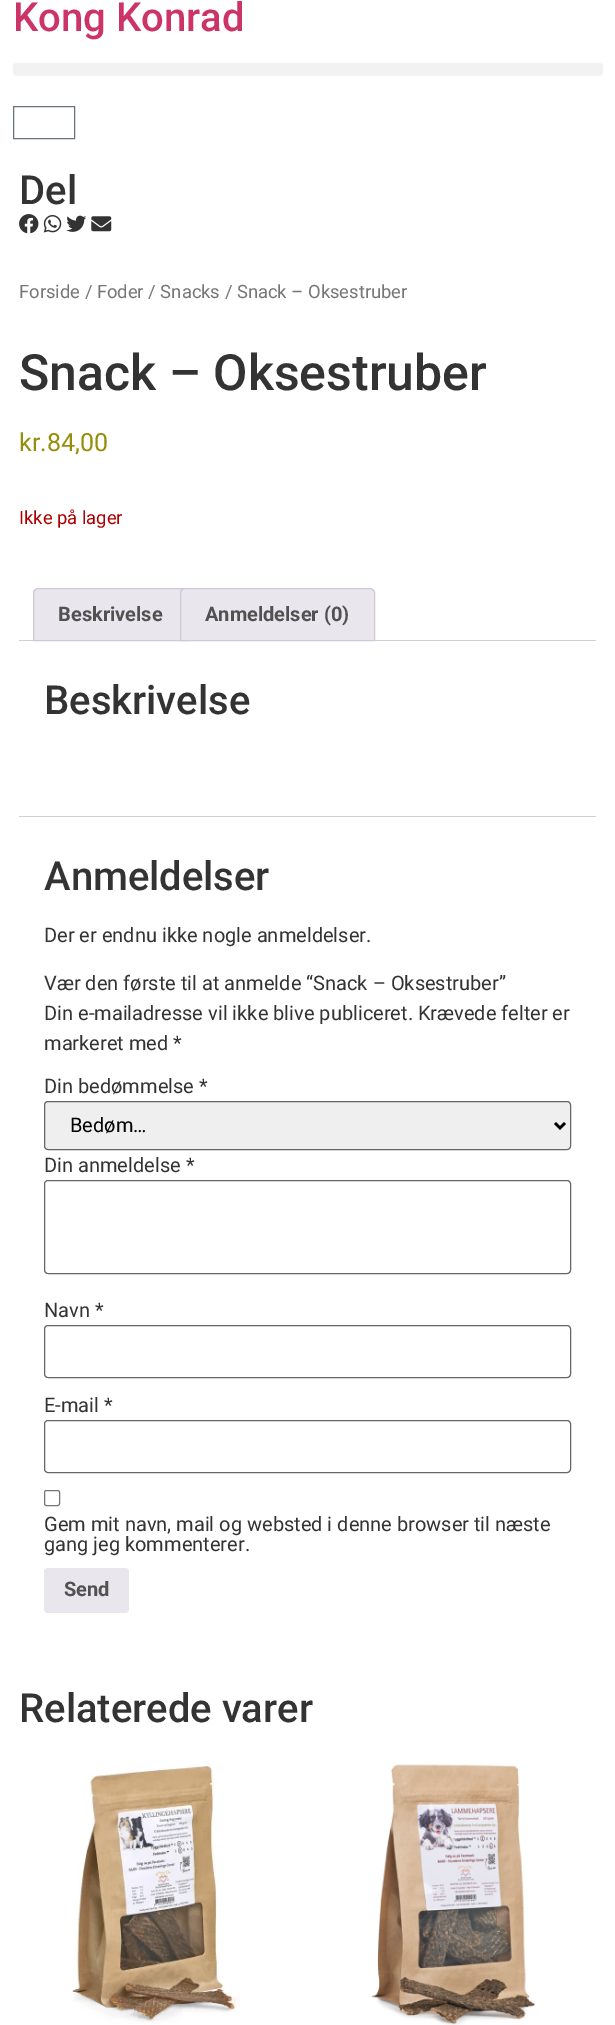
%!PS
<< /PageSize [615 2025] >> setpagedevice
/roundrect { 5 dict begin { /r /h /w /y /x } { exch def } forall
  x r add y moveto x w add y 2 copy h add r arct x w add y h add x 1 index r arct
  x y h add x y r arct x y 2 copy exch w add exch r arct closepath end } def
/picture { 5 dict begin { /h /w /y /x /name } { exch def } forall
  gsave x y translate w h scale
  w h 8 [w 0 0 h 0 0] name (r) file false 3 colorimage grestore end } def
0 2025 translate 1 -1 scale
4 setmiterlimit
1 setgray
0 0 615 2025 rectfill
/Roboto-Medium [40 0 0 -40 0 0] selectfont
0.8 0.2 0.4 setrgbcolor
13 31 moveto (Kong Konrad) show
0.949 setgray
13 63 590 13 4 roundrect fill
0.412 0.447 0.49 setrgbcolor
13.5 106.5 61 32 rectstroke
0.2 setgray
19 204 moveto (Del) show
(img1.rgb) 19 214 20 20 picture
(img2.rgb) 43 215 19 18 picture
(img3.rgb) 66 215 21 17 picture
(img4.rgb) 91 216 21 16 picture
/Roboto-Regular [18.4 0 0 -18.4 0 0] selectfont
0.463 setgray
19 298 moveto (Forside / Foder / Snacks / Snack – Oksestruber) show
/Roboto-Medium [50 0 0 -50 0 0] selectfont
0.2 setgray
19 390 moveto (Snack – Oksestruber) show
/Roboto-Regular [25 0 0 -25 0 0] selectfont
0.584 0.557 0.035 setrgbcolor
19 451 moveto (kr.84,00) show
/Roboto-Regular [18.4 0 0 -18.4 0 0] selectfont
0.667 0 0 setrgbcolor
19 524 moveto (Ikke på lager) show
0.827 0.808 0.824 setrgbcolor
19 640 577 1 rectfill
0.914 0.902 0.929 setrgbcolor
newpath 38 588.5 moveto 183 588.5 lineto 185.5 588.5 187.5 590.5 187.5 593 curveto 187.5 640.5 lineto 33.5 640.5 lineto 33.5 593 lineto 33.5 590.5 35.5 588.5 38 588.5 curveto closepath gsave fill grestore
0.812 0.784 0.847 setrgbcolor
stroke
/Roboto-Bold [20 0 0 -20 0 0] selectfont
0.318 setgray
58 621 moveto (Beskrivelse) show
0.914 0.902 0.929 setrgbcolor
newpath 185 588.5 moveto 370 588.5 lineto 372.5 588.5 374.5 590.5 374.5 593 curveto 374.5 640.5 lineto 180.5 640.5 lineto 180.5 593 lineto 180.5 590.5 182.5 588.5 185 588.5 curveto closepath gsave fill grestore
0.812 0.784 0.847 setrgbcolor
stroke
0.318 setgray
205 621 moveto (Anmeldelser \(0\)) show
/Roboto-Medium [40 0 0 -40 0 0] selectfont
0.2 setgray
44 714 moveto (Beskrivelse) show
0.827 0.808 0.824 setrgbcolor
19 816 577 1 rectfill
0.2 setgray
44 890 moveto (Anmeldelser) show
/Roboto-Regular [20 0 0 -20 0 0] selectfont
44 942 moveto (Der er endnu ikke nogle anmeldelser.) show
44 990 moveto (Vær den første til at anmelde “Snack – Oksestruber”) show
44 1020 moveto (Din e-mailadresse vil ikke blive publiceret. Krævede felter er) show
44 1050 moveto (markeret med *) show
44 1093 moveto (Din bedømmelse *) show
0.937 setgray
44.5 1101.5 526 48 3.5 roundrect gsave fill grestore
0.4 setgray
stroke
0 setgray
2.5 setlinewidth
newpath 555 1123 moveto 560 1128 lineto 565 1123 lineto stroke
70 1132 moveto (Bedøm…) show
0.2 setgray
44 1172 moveto (Din anmeldelse *) show
0.4 setgray
1 setlinewidth
44.5 1180.5 526 93 3.5 roundrect stroke
0.2 setgray
44 1317 moveto (Navn *) show
0.4 setgray
44.5 1325.5 526 52 3.5 roundrect stroke
0.2 setgray
44 1412 moveto (E-mail *) show
0.4 setgray
44.5 1420.5 526 52 3.5 roundrect stroke
0.463 setgray
44.5 1490.5 15 15 2 roundrect stroke
0.2 setgray
44 1531 moveto (Gem mit navn, mail og websted i denne browser til næste) show
44 1551 moveto (gang jeg kommenterer.) show
0.914 0.902 0.929 setrgbcolor
44 1568 85 45 4 roundrect fill
/Roboto-Bold [20 0 0 -20 0 0] selectfont
0.318 setgray
64 1596 moveto (Send) show
/Roboto-Medium [40 0 0 -40 0 0] selectfont
0.2 setgray
19 1722 moveto (Relaterede varer) show
(img5.rgb) 70 1764 170 260 picture
(img6.rgb) 371 1764 165 261 picture
showpage
